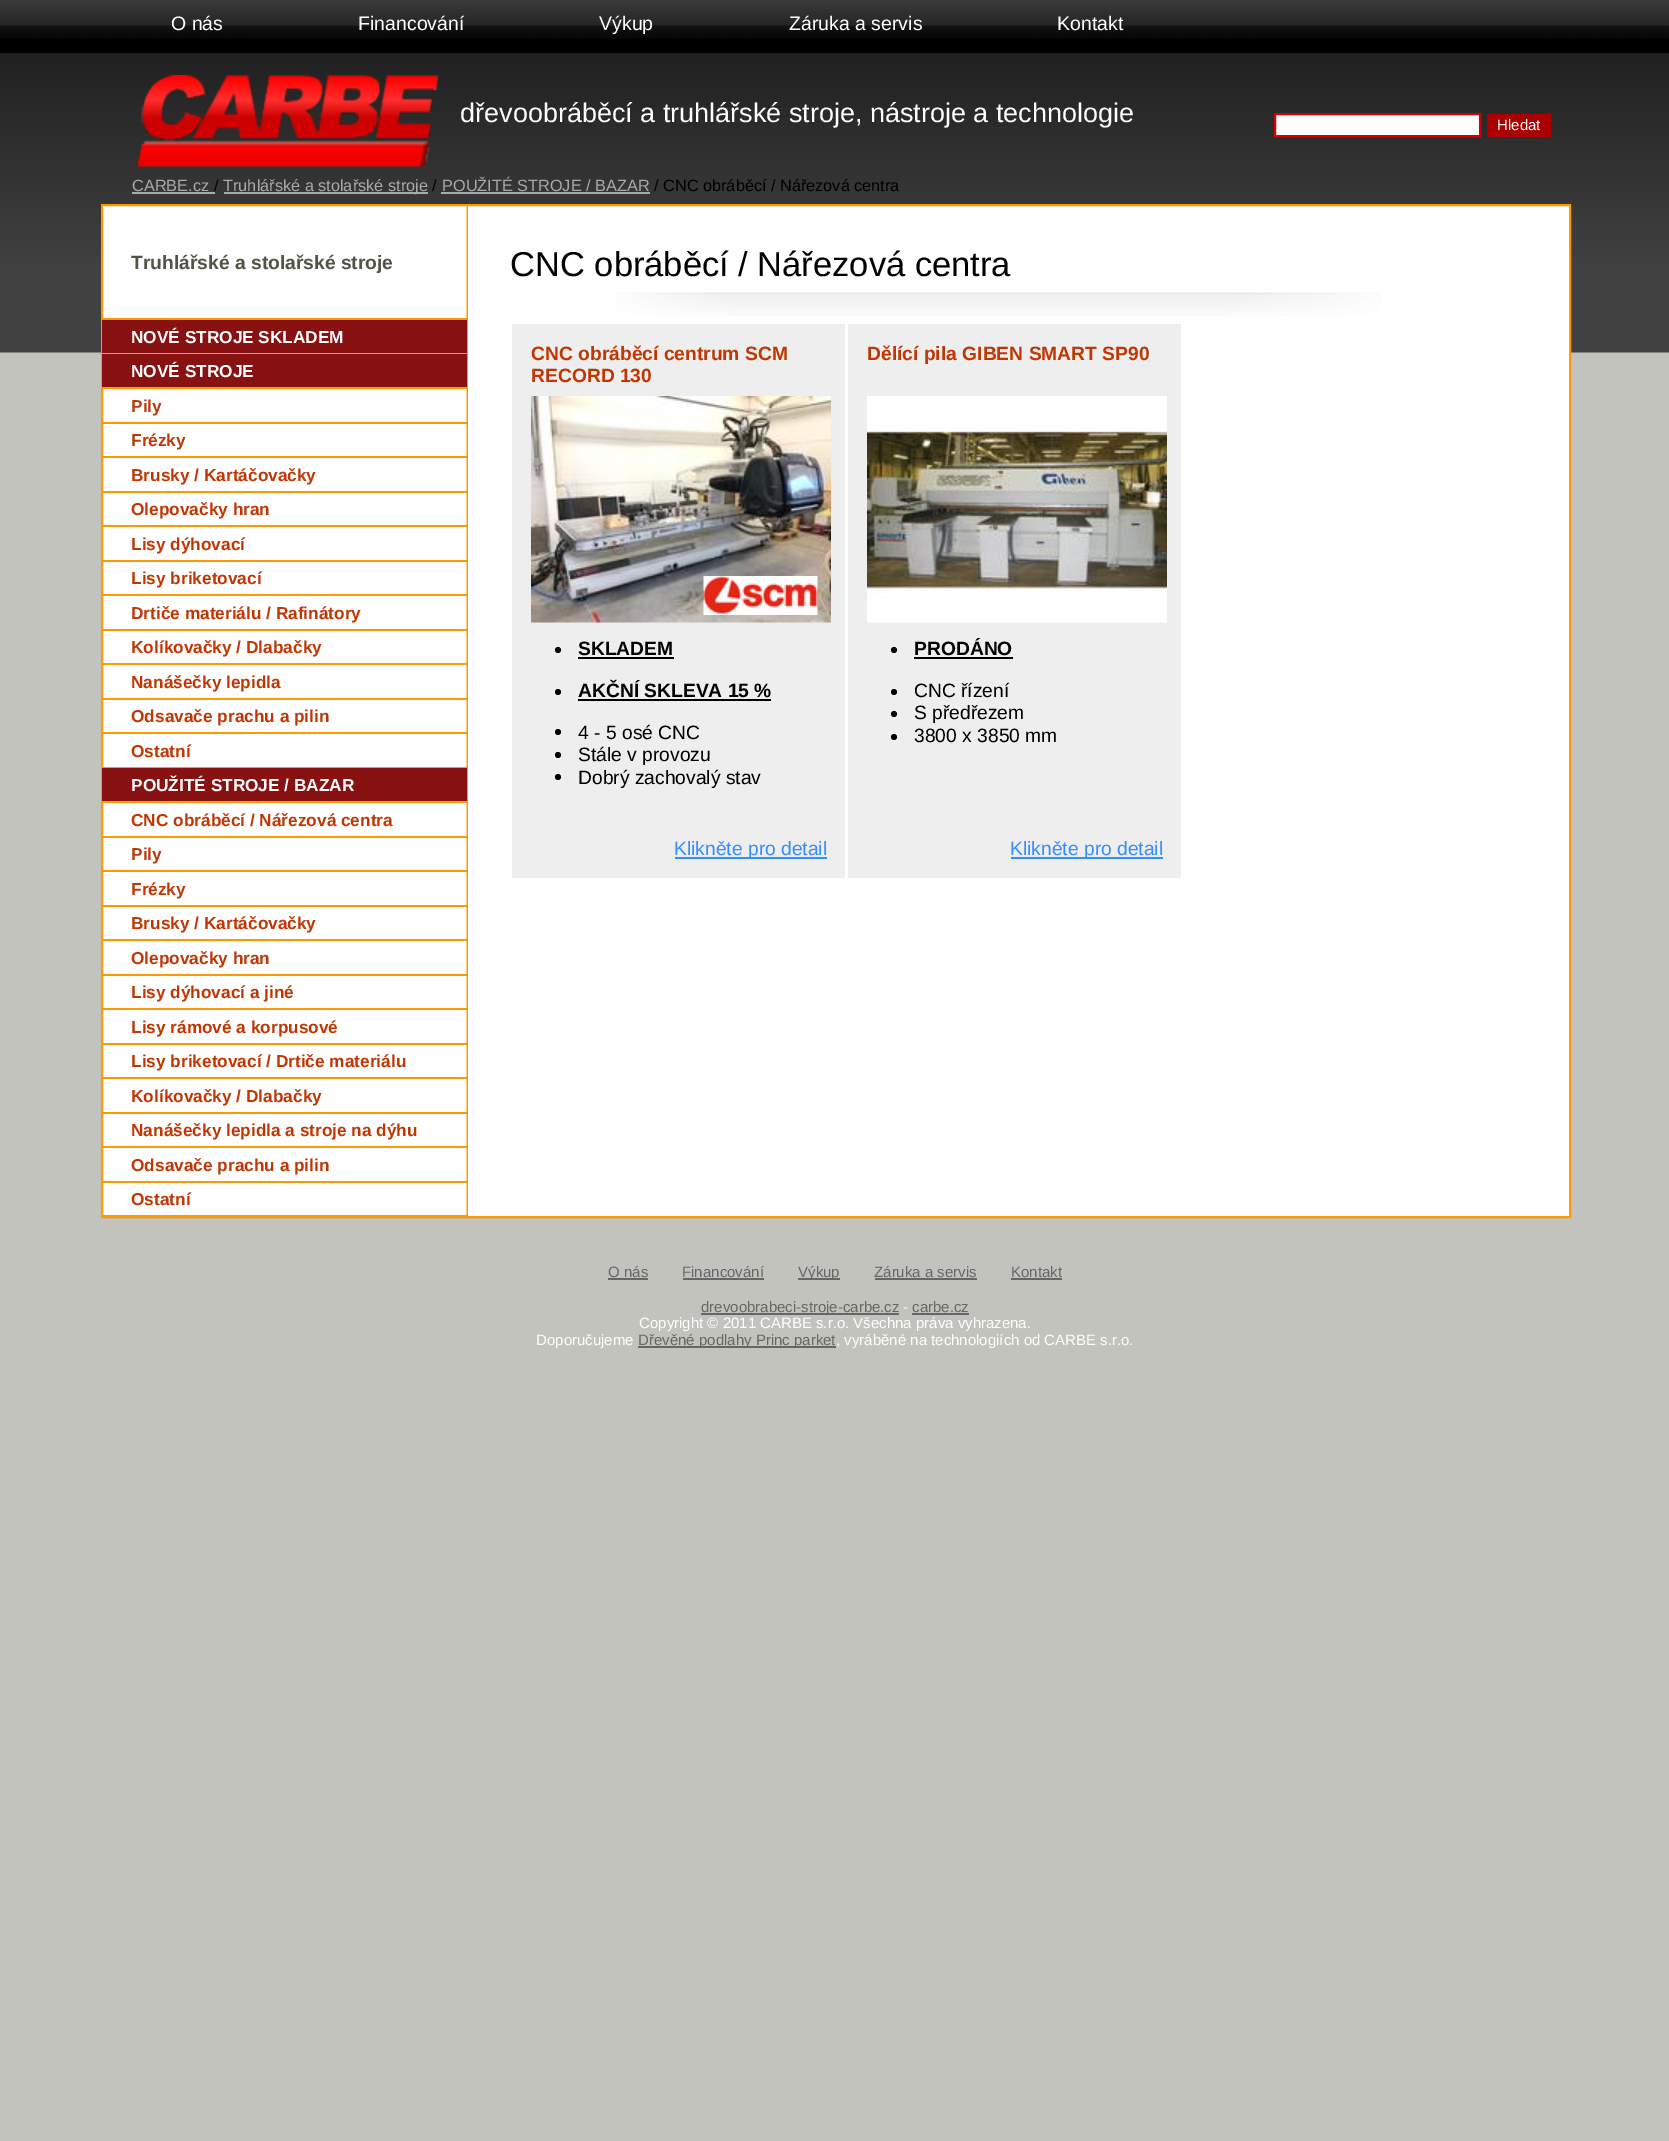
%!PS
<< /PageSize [1669 2141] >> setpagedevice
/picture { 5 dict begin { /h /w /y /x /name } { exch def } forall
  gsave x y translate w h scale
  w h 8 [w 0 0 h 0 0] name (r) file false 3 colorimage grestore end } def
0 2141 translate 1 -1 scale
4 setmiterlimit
0.765 0.765 0.745 setrgbcolor
0 0 1669 2141 rectfill
(img1.rgb) 0 53 1669 300 picture
0 setgray
0 39 1669 14 rectfill
(img2.rgb) 0 0 1669 39 picture
/LiberationSans-Regular [19.5 0 0 -19.5 0 0] selectfont
1 setgray
171 30 moveto (O nás) show
358 30 moveto (Financování) show
599 30 moveto (Výkup) show
789 30 moveto (Záruka a servis) show
1057 30 moveto (Kontakt) show
(img3.rgb) 138 75 300 92 picture
/LiberationSans-Regular [27 0 0 -27 0 0] selectfont
460 122 moveto (dřevoobráběcí a truhlářské stroje, nástroje a technologie) show
newpath 1275 114 moveto 1480 114 lineto 1480 136 lineto 1275 136 lineto closepath gsave fill grestore
0.843 0 0 setrgbcolor
2 setlinewidth
stroke
0.667 0 0 setrgbcolor
1487 114 64 23 rectfill
/LiberationSans-Regular [15 0 0 -15 0 0] selectfont
1 setgray
1497 130 moveto (Hledat) show
/LiberationSans-Regular [16.3 0 0 -16.3 0 0] selectfont
0.667 setgray
132 191 moveto (CARBE.cz) show
132 192 83 2 rectfill
0 setgray
214 191 moveto (/) show
0.667 setgray
224 192 204 2 rectfill
223 191 moveto (Truhlářské a stolařské stroje) show
0 setgray
432 191 moveto (/) show
0.667 setgray
442 191 moveto (POUŽITÉ STROJE / BAZAR) show
441 192 209 2 rectfill
0 setgray
654 191 moveto (/ CNC obráběcí / Nářezová centra) show
1 setgray
103 206 1466 1010 rectfill
(img4.rgb) 466 206 2 1010 picture
1 0.6 0 setrgbcolor
102 205 1468 1012 rectstroke
/LiberationSans-Bold [19.25 0 0 -19.25 0 0] selectfont
0.322 0.325 0.271 setrgbcolor
131 269 moveto (Truhlářské a stolařské stroje) show
1 0.6 0 setrgbcolor
102 1215 365 1 rectfill
102 318 365 2 rectfill
0.533 0.067 0.067 setrgbcolor
102 320 365 33 rectfill
/LiberationSans-Bold [17.25 0 0 -17.25 0 0] selectfont
1 setgray
131 343 moveto (NOVÉ STROJE SKLADEM) show
1 0.6 0 setrgbcolor
102 353 365 1 rectfill
0.533 0.067 0.067 setrgbcolor
102 354 365 33 rectfill
1 setgray
131 377 moveto (NOVÉ STROJE) show
1 0.6 0 setrgbcolor
102 387 365 2 rectfill
0.753 0.216 0.012 setrgbcolor
131 412 moveto (Pily) show
1 0.6 0 setrgbcolor
102 422 365 2 rectfill
0.753 0.216 0.012 setrgbcolor
131 446 moveto (Frézky) show
1 0.6 0 setrgbcolor
102 456 365 2 rectfill
0.753 0.216 0.012 setrgbcolor
131 481 moveto (Brusky / Kartáčovačky) show
1 0.6 0 setrgbcolor
102 491 365 2 rectfill
0.753 0.216 0.012 setrgbcolor
131 515 moveto (Olepovačky hran) show
1 0.6 0 setrgbcolor
102 525 365 2 rectfill
0.753 0.216 0.012 setrgbcolor
131 550 moveto (Lisy dýhovací) show
1 0.6 0 setrgbcolor
102 560 365 2 rectfill
0.753 0.216 0.012 setrgbcolor
131 584 moveto (Lisy briketovací) show
1 0.6 0 setrgbcolor
102 594 365 2 rectfill
0.753 0.216 0.012 setrgbcolor
131 619 moveto (Drtiče materiálu / Rafinátory) show
1 0.6 0 setrgbcolor
102 629 365 2 rectfill
0.753 0.216 0.012 setrgbcolor
131 653 moveto (Kolíkovačky / Dlabačky) show
1 0.6 0 setrgbcolor
102 663 365 2 rectfill
0.753 0.216 0.012 setrgbcolor
131 688 moveto (Nanášečky lepidla) show
1 0.6 0 setrgbcolor
102 698 365 2 rectfill
0.753 0.216 0.012 setrgbcolor
131 722 moveto (Odsavače prachu a pilin) show
1 0.6 0 setrgbcolor
102 732 365 2 rectfill
0.753 0.216 0.012 setrgbcolor
131 757 moveto (Ostatní) show
1 0.6 0 setrgbcolor
102 767 365 1 rectfill
0.533 0.067 0.067 setrgbcolor
102 768 365 33 rectfill
1 setgray
131 791 moveto (POUŽITÉ STROJE / BAZAR) show
1 0.6 0 setrgbcolor
102 801 365 2 rectfill
0.753 0.216 0.012 setrgbcolor
131 826 moveto (CNC obráběcí / Nářezová centra) show
1 0.6 0 setrgbcolor
102 836 365 2 rectfill
0.753 0.216 0.012 setrgbcolor
131 860 moveto (Pily) show
1 0.6 0 setrgbcolor
102 870 365 2 rectfill
0.753 0.216 0.012 setrgbcolor
131 895 moveto (Frézky) show
1 0.6 0 setrgbcolor
102 905 365 2 rectfill
0.753 0.216 0.012 setrgbcolor
131 929 moveto (Brusky / Kartáčovačky) show
1 0.6 0 setrgbcolor
102 939 365 2 rectfill
0.753 0.216 0.012 setrgbcolor
131 964 moveto (Olepovačky hran) show
1 0.6 0 setrgbcolor
102 974 365 2 rectfill
0.753 0.216 0.012 setrgbcolor
131 998 moveto (Lisy dýhovací a jiné) show
1 0.6 0 setrgbcolor
102 1008 365 2 rectfill
0.753 0.216 0.012 setrgbcolor
131 1033 moveto (Lisy rámové a korpusové) show
1 0.6 0 setrgbcolor
102 1043 365 2 rectfill
0.753 0.216 0.012 setrgbcolor
131 1067 moveto (Lisy briketovací / Drtiče materiálu) show
1 0.6 0 setrgbcolor
102 1077 365 2 rectfill
0.753 0.216 0.012 setrgbcolor
131 1102 moveto (Kolíkovačky / Dlabačky) show
1 0.6 0 setrgbcolor
102 1112 365 2 rectfill
0.753 0.216 0.012 setrgbcolor
131 1136 moveto (Nanášečky lepidla a stroje na dýhu) show
1 0.6 0 setrgbcolor
102 1146 365 2 rectfill
0.753 0.216 0.012 setrgbcolor
131 1171 moveto (Odsavače prachu a pilin) show
1 0.6 0 setrgbcolor
102 1181 365 2 rectfill
0.753 0.216 0.012 setrgbcolor
131 1205 moveto (Ostatní) show
(img5.rgb) 616 292 765 24 picture
/LiberationSans-Regular [34.5 0 0 -34.5 0 0] selectfont
0 setgray
510 276 moveto (CNC obráběcí / Nářezová centra) show
0.933 setgray
512 324 333 554 rectfill
/LiberationSans-Bold [19.25 0 0 -19.25 0 0] selectfont
0.753 0.216 0.012 setrgbcolor
531 360 moveto (CNC obráběcí centrum SCM) show
531 382 moveto (RECORD 130) show
(img6.rgb) 531 396 300 227 picture
(img7.rgb) 703 576 115 39 picture
0 setgray
newpath 558 650 3 0 360 arc closepath fill
578 655 moveto (SKLADEM) show
578 657 96 2 rectfill
newpath 558 692 3 0 360 arc closepath fill
578 697 moveto (AKČNÍ SKLEVA 15 %) show
578 699 193 2 rectfill
newpath 558 732 3 0 360 arc closepath fill
/LiberationSans-Regular [19.25 0 0 -19.25 0 0] selectfont
578 739 moveto (4 - 5 osé CNC) show
newpath 558 755 3 0 360 arc closepath fill
578 761 moveto (Stále v provozu) show
newpath 558 777 3 0 360 arc closepath fill
578 784 moveto (Dobrý zachovalý stav) show
0.2 0.561 1 setrgbcolor
675 857 152 2 rectfill
674 855 moveto (Klikněte pro detail) show
0.933 setgray
848 324 333 554 rectfill
/LiberationSans-Bold [19.25 0 0 -19.25 0 0] selectfont
0.753 0.216 0.012 setrgbcolor
867 360 moveto (Dělící pila GIBEN SMART SP90) show
(img8.rgb) 867 396 300 227 picture
0 setgray
newpath 894 650 3 0 360 arc closepath fill
914 655 moveto (PRODÁNO) show
914 657 99 2 rectfill
newpath 894 692 3 0 360 arc closepath fill
/LiberationSans-Regular [19.25 0 0 -19.25 0 0] selectfont
914 697 moveto (CNC řízení) show
newpath 894 714 3 0 360 arc closepath fill
914 719 moveto (S předřezem) show
newpath 894 737 3 0 360 arc closepath fill
914 742 moveto (3800 x 3850 mm) show
0.2 0.561 1 setrgbcolor
1011 857 152 2 rectfill
1010 855 moveto (Klikněte pro detail) show
/LiberationSans-Regular [15 0 0 -15 0 0] selectfont
0.4 setgray
608 1277 moveto (O nás) show
608 1278 40 2 rectfill
682 1277 moveto (Financování) show
683 1278 81 2 rectfill
798 1278 42 2 rectfill
798 1277 moveto (Výkup) show
874 1277 moveto (Záruka a servis) show
875 1278 102 2 rectfill
1011 1277 moveto (Kontakt) show
1011 1278 51 2 rectfill
701 1313 198 2 rectfill
701 1312 moveto (drevoobrabeci-stroje-carbe.cz) show
1 setgray
903 1312 moveto (-) show
0.4 setgray
912 1312 moveto (carbe.cz) show
912 1313 57 2 rectfill
1 setgray
639 1328 moveto (Copyright © 2011 CARBE s.r.o. Všechna práva vyhrazena.) show
536 1345 moveto (Doporučujeme) show
0.4 setgray
638 1346 198 2 rectfill
638 1345 moveto (Dřevěné podlahy Princ parket) show
1 setgray
836 1345 moveto (, vyráběné na technologiích od CARBE s.r.o.) show
showpage
